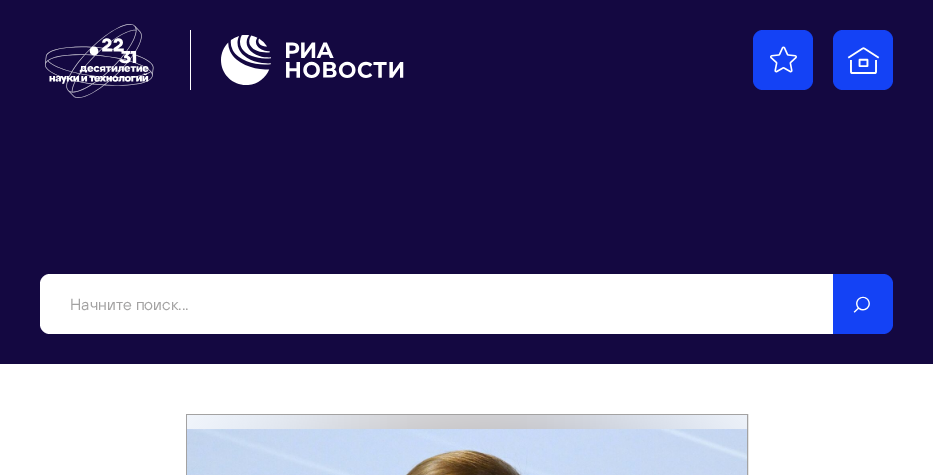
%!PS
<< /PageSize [933 475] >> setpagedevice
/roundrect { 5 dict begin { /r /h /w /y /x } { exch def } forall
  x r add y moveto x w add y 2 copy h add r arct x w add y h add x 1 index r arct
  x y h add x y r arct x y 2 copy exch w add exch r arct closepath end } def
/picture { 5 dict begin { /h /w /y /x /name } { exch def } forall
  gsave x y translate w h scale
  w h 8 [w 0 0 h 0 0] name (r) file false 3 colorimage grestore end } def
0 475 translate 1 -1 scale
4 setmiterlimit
1 setgray
0 0 933 475 rectfill
0.078 0.031 0.255 setrgbcolor
0 0 933 364 rectfill
(img1.rgb) 44 24 110 74 picture
1 setgray
190 30 1 60 rectfill
(img2.rgb) 221 35 183 50 picture
0.078 0.259 0.961 setrgbcolor
753 30 60 60 10 roundrect fill
(img3.rgb) 770 46 27 27 picture
833 30 60 60 10 roundrect fill
(img4.rgb) 847 47 33 27 picture
1 setgray
newpath 50 274 moveto 833 274 lineto 833 334 lineto 50 334 lineto 44.5 334 40 329.5 40 324 curveto 40 284 lineto 40 278.5 44.5 274 50 274 curveto closepath fill
/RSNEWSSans-Regular [16 0 0 -16 0 0] selectfont
0.639 0.635 0.635 setrgbcolor
70 310 moveto (Начните поиск...) show
0.078 0.259 0.961 setrgbcolor
newpath 833 274 moveto 883 274 lineto 888.5 274 893 278.5 893 284 curveto 893 324 lineto 893 329.5 888.5 334 883 334 curveto 833 334 lineto closepath fill
(img5.rgb) 853 296 17 17 picture
0.639 0.635 0.635 setrgbcolor
186.5 414.5 561 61 rectstroke
(img6.rgb) 187 415 560 14 picture
(img7.rgb) 187 429 560 46 picture
showpage
